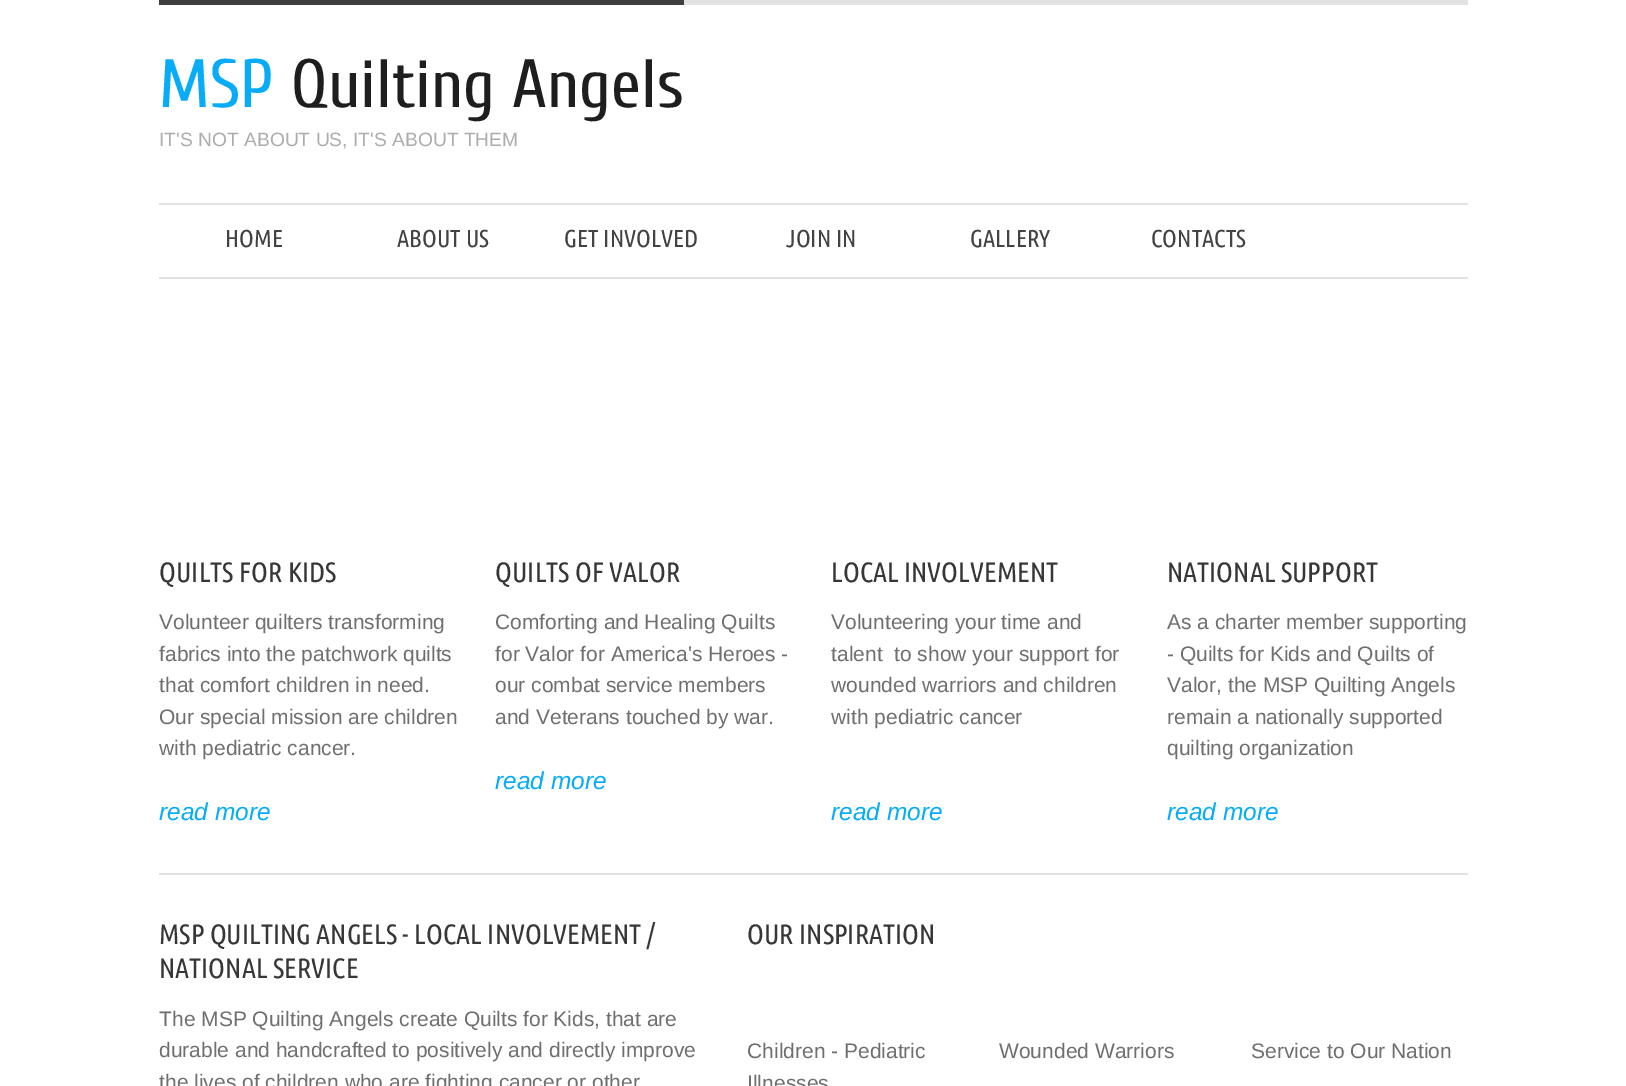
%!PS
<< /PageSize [1626 1086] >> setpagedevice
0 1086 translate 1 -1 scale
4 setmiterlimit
1 setgray
0 0 1626 1086 rectfill
0.886 setgray
684 0 784 5 rectfill
0.243 setgray
159 0 525 5 rectfill
/Cuprum-Regular [68.25 0 0 -68.25 0 0] selectfont
0.024 0.675 0.973 setrgbcolor
159 107 moveto (MSP) show
0.118 setgray
291 107 moveto (Quilting Angels) show
/LiberationSans-Regular [19.25 0 0 -19.25 0 0] selectfont
0.675 setgray
159 146 moveto (IT'S NOT ABOUT US, IT'S ABOUT THEM) show
0.886 setgray
159 203 1309 2 rectfill
159 277 1309 2 rectfill
/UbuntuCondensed-Regular [24.5 0 0 -24.5 0 0] selectfont
0.267 0.259 0.263 setrgbcolor
225 247 moveto (HOME) show
397 247 moveto (ABOUT US) show
564 247 moveto (GET INVOLVED) show
786 247 moveto (JOIN IN) show
970 247 moveto (GALLERY) show
1151 247 moveto (CONTACTS) show
/UbuntuCondensed-Regular [28 0 0 -28 0 0] selectfont
0.216 setgray
159 582 moveto (QUILTS FOR KIDS) show
/LiberationSans-Regular [21 0 0 -21 0 0] selectfont
0.435 setgray
159 629 moveto (Volunteer quilters transforming) show
159 661 moveto (fabrics into the patchwork quilts) show
159 692 moveto (that comfort children in need.) show
159 724 moveto (Our special mission are children) show
159 755 moveto (with pediatric cancer.) show
/LiberationSans-Italic [24.5 0 0 -24.5 0 0] selectfont
0.024 0.675 0.973 setrgbcolor
159 820 moveto (read more) show
/UbuntuCondensed-Regular [28 0 0 -28 0 0] selectfont
0.216 setgray
495 582 moveto (QUILTS OF VALOR) show
/LiberationSans-Regular [21 0 0 -21 0 0] selectfont
0.435 setgray
495 629 moveto (Comforting and Healing Quilts) show
495 661 moveto (for Valor for America's Heroes -) show
495 692 moveto (our combat service members) show
495 724 moveto (and Veterans touched by war.) show
/LiberationSans-Italic [24.5 0 0 -24.5 0 0] selectfont
0.024 0.675 0.973 setrgbcolor
495 789 moveto (read more) show
/UbuntuCondensed-Regular [28 0 0 -28 0 0] selectfont
0.216 setgray
831 582 moveto (LOCAL INVOLVEMENT) show
/LiberationSans-Regular [21 0 0 -21 0 0] selectfont
0.435 setgray
831 629 moveto (Volunteering your time and) show
831 661 moveto (talent  to show your support for) show
831 692 moveto (wounded warriors and children) show
831 724 moveto (with pediatric cancer) show
/LiberationSans-Italic [24.5 0 0 -24.5 0 0] selectfont
0.024 0.675 0.973 setrgbcolor
831 820 moveto (read more) show
/UbuntuCondensed-Regular [28 0 0 -28 0 0] selectfont
0.216 setgray
1167 582 moveto (NATIONAL SUPPORT) show
/LiberationSans-Regular [21 0 0 -21 0 0] selectfont
0.435 setgray
1167 629 moveto (As a charter member supporting) show
1167 661 moveto (- Quilts for Kids and Quilts of) show
1167 692 moveto (Valor, the MSP Quilting Angels) show
1167 724 moveto (remain a nationally supported) show
1167 755 moveto (quilting organization) show
/LiberationSans-Italic [24.5 0 0 -24.5 0 0] selectfont
0.024 0.675 0.973 setrgbcolor
1167 820 moveto (read more) show
0.886 setgray
159 873 1309 2 rectfill
/UbuntuCondensed-Regular [28 0 0 -28 0 0] selectfont
0.216 setgray
159 944 moveto (MSP QUILTING ANGELS - LOCAL INVOLVEMENT /) show
159 978 moveto (NATIONAL SERVICE) show
/LiberationSans-Regular [21 0 0 -21 0 0] selectfont
0.435 setgray
159 1026 moveto (The MSP Quilting Angels create Quilts for Kids, that are) show
159 1057 moveto (durable and handcrafted to positively and directly improve) show
159 1089 moveto (the lives of children who are fighting cancer or other) show
/UbuntuCondensed-Regular [28 0 0 -28 0 0] selectfont
0.216 setgray
747 944 moveto (OUR INSPIRATION) show
/LiberationSans-Regular [21 0 0 -21 0 0] selectfont
0.435 setgray
747 1058 moveto (Children - Pediatric) show
747 1090 moveto (Illnesses) show
999 1058 moveto (Wounded Warriors) show
1251 1058 moveto (Service to Our Nation) show
showpage
